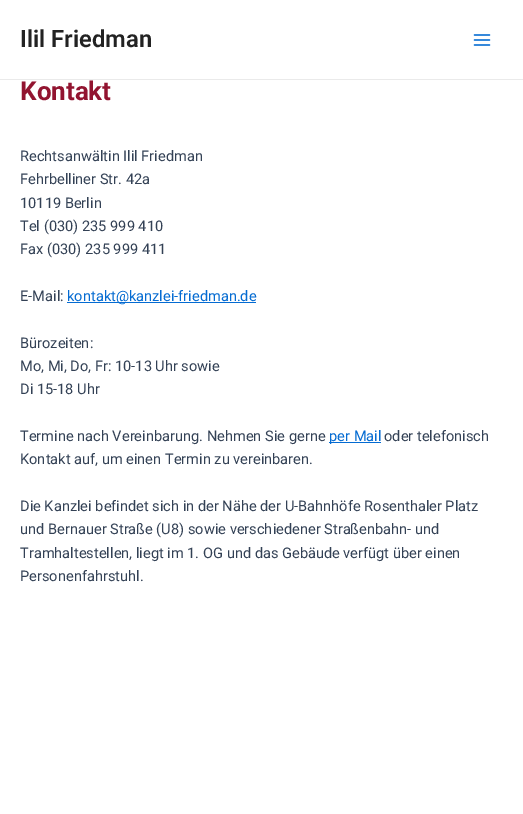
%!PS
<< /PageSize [523 814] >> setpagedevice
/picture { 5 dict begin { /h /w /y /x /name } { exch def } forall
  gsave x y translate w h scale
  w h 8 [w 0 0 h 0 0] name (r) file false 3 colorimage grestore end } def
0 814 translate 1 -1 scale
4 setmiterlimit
1 setgray
0 0 523 814 rectfill
0.918 setgray
0 79 523 1 rectfill
/Roboto-SemiBold [23.75 0 0 -23.75 0 0] selectfont
0.133 setgray
20 47 moveto (Ilil Friedman) show
(img1.rgb) 473 34 18 12 picture
/Roboto-Bold [26 0 0 -26 0 0] selectfont
0.573 0.078 0.188 setrgbcolor
20 100 moveto (Kontakt) show
/Roboto-Regular [14.6 0 0 -14.6 0 0] selectfont
0.2 0.255 0.333 setrgbcolor
20 161 moveto (Rechtsanwältin Ilil Friedman) show
20 184 moveto (Fehrbelliner Str. 42a) show
20 208 moveto (10119 Berlin) show
20 231 moveto (Tel \(030\) 235 999 410) show
20 254 moveto (Fax \(030\) 235 999 411) show
20 301 moveto (E-Mail:) show
0.016 0.42 0.824 setrgbcolor
67 302 189 1 rectfill
67 301 moveto (kontakt@kanzlei-friedman.de) show
0.2 0.255 0.333 setrgbcolor
20 348 moveto (Bürozeiten:) show
20 371 moveto (Mo, Mi, Do, Fr: 10-13 Uhr sowie) show
20 394 moveto (Di 15-18 Uhr) show
20 441 moveto (Termine nach Vereinbarung. Nehmen Sie gerne) show
0.016 0.42 0.824 setrgbcolor
329 442 52 1 rectfill
329 441 moveto (per Mail) show
0.2 0.255 0.333 setrgbcolor
384 441 moveto (oder telefonisch) show
20 464 moveto (Kontakt auf, um einen Termin zu vereinbaren.) show
20 511 moveto (Die Kanzlei befindet sich in der Nähe der U-Bahnhöfe Rosenthaler Platz) show
20 534 moveto (und Bernauer Straße \(U8\) sowie verschiedener Straßenbahn- und) show
20 558 moveto (Tramhaltestellen, liegt im 1. OG und das Gebäude verfügt über einen) show
20 581 moveto (Personenfahrstuhl.) show
showpage
